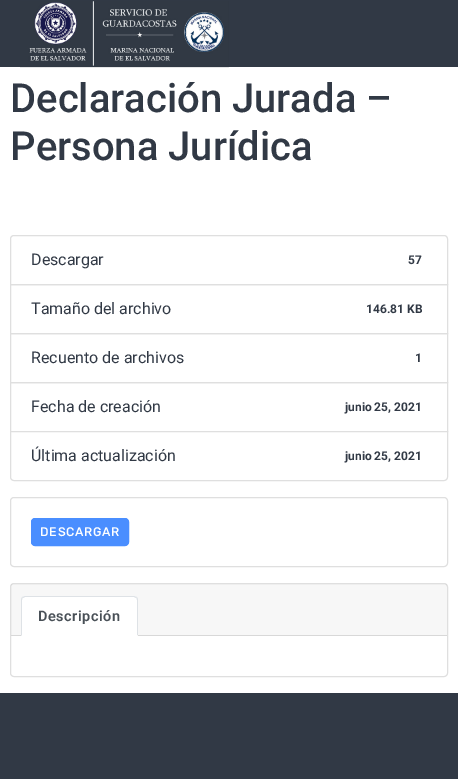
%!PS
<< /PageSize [458 779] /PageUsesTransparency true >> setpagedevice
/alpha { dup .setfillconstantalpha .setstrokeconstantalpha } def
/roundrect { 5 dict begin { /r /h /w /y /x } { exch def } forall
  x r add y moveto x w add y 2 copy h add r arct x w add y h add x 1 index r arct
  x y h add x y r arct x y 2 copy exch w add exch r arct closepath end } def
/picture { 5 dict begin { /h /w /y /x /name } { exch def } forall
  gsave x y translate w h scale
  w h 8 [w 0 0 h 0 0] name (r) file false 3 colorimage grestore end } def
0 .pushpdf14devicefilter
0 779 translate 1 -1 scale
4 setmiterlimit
1 setgray
0 0 458 779 rectfill
0.192 0.224 0.271 setrgbcolor
0 0 458 67 rectfill
(img1.rgb) 20 1 209 67 picture
/Roboto-Medium [40 0 0 -40 0 0] selectfont
10 112 moveto (Declaración Jurada –) show
10 160 moveto (Persona Jurídica) show
0.875 setgray
newpath 14 235.5 moveto 444 235.5 lineto 446 235.5 447.5 237 447.5 239 curveto 447.5 284.5 lineto 10.5 284.5 lineto 10.5 239 lineto 10.5 237 12 235.5 14 235.5 curveto closepath stroke
/Roboto-Regular [16 0 0 -16 0 0] selectfont
0.192 0.224 0.271 setrgbcolor
31 265 moveto (Descargar) show
/Roboto-Bold [12 0 0 -12 0 0] selectfont
408 264 moveto (57) show
0.875 setgray
10.5 284.5 437 49 rectstroke
/Roboto-Regular [16 0 0 -16 0 0] selectfont
0.192 0.224 0.271 setrgbcolor
31 314 moveto (Tamaño del archivo) show
/Roboto-Bold [12 0 0 -12 0 0] selectfont
366 313 moveto (146.81 KB) show
0.875 setgray
10.5 333.5 437 49 rectstroke
/Roboto-Regular [16 0 0 -16 0 0] selectfont
0.192 0.224 0.271 setrgbcolor
31 363 moveto (Recuento de archivos) show
/Roboto-Bold [12 0 0 -12 0 0] selectfont
415 362 moveto (1) show
0.875 setgray
10.5 382.5 437 49 rectstroke
/Roboto-Regular [16 0 0 -16 0 0] selectfont
0.192 0.224 0.271 setrgbcolor
31 412 moveto (Fecha de creación) show
/Roboto-Bold [12 0 0 -12 0 0] selectfont
345 411 moveto (junio 25, 2021) show
1 setgray
newpath 10.5 431.5 moveto 447.5 431.5 lineto 447.5 477 lineto 447.5 479 446 480.5 444 480.5 curveto 14 480.5 lineto 12 480.5 10.5 479 10.5 477 curveto closepath gsave fill grestore
0.875 setgray
stroke
/Roboto-Regular [16 0 0 -16 0 0] selectfont
0.192 0.224 0.271 setrgbcolor
31 461 moveto (Última actualización) show
/Roboto-Bold [12 0 0 -12 0 0] selectfont
345 460 moveto (junio 25, 2021) show
0.875 setgray
10.5 497.5 437 69 3.5 roundrect stroke
0.29 0.557 1 setrgbcolor
31.5 518.5 97 27 3.5 roundrect gsave fill grestore
stroke
/Rubik-Bold [12 0 0 -12 0 0] selectfont
1 setgray
40 536 moveto 1 0 (DESCARGAR) ashow
0.875 setgray
10.5 583.5 437 93 3.5 roundrect stroke
0.03 alpha
0 setgray
11 584 436 51 rectfill
1 alpha
0.847 setgray
11 635 436 1 rectfill
1 setgray
newpath 25 596 moveto 134 596 lineto 136 596 138 598 138 600 curveto 138 636 lineto 21 636 lineto 21 600 lineto 21 598 23 596 25 596 curveto closepath fill
0.871 0.886 0.902 setrgbcolor
newpath 25 596 moveto 22 597 lineto 23 598 lineto 25 597 lineto 134 597 lineto 136 598 lineto 137 597 lineto 134 596 lineto closepath fill
newpath 138 636 moveto 138 600 lineto 138 599 137.5 598 137 597 curveto 136 598 lineto 137 598 137 599 137 600 curveto 137 635 lineto closepath fill
1 setgray
newpath 138 636 moveto 137 635 lineto 22 635 lineto 21 636 lineto closepath fill
0.871 0.886 0.902 setrgbcolor
newpath 21 636 moveto 22 635 lineto 22 600 lineto 22 599 22 598 23 598 curveto 22 597 lineto 21.5 598 21 599 21 600 curveto closepath fill
/Roboto-SemiBold [14.5 0 0 -14.5 0 0] selectfont
0.286 0.314 0.341 setrgbcolor
38 621 moveto 0.5 0 (Descripción) ashow
0.192 0.224 0.271 setrgbcolor
0 693 458 86 rectfill
.poppdf14devicefilter showpage
